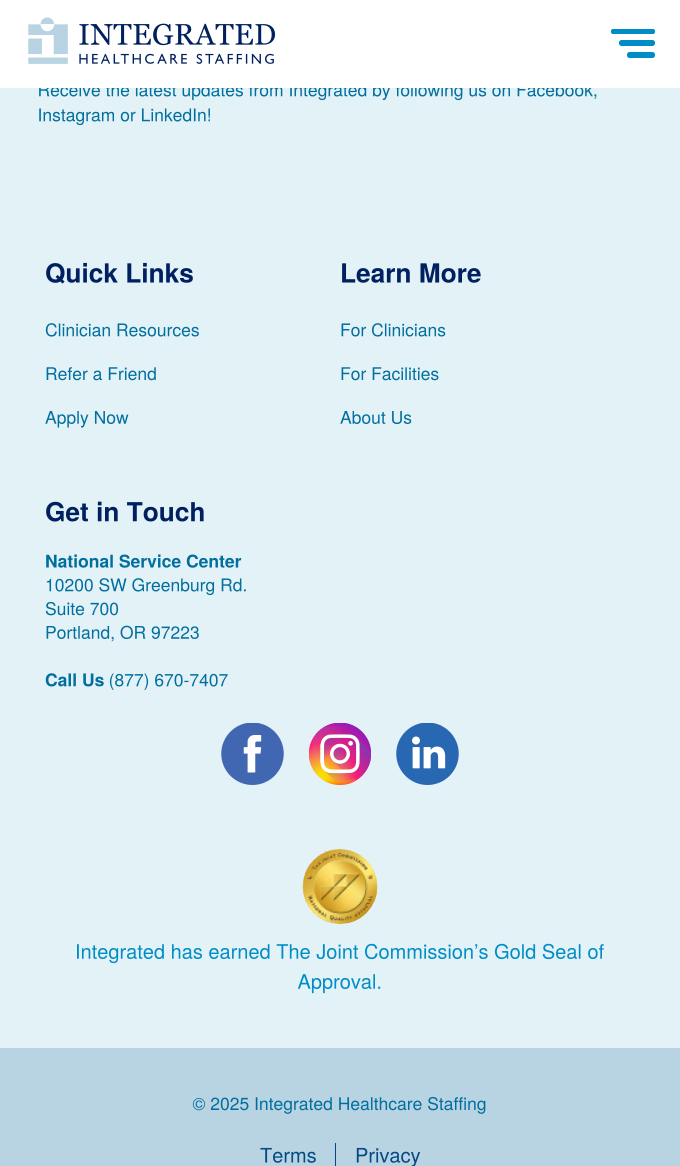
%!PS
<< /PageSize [680 1166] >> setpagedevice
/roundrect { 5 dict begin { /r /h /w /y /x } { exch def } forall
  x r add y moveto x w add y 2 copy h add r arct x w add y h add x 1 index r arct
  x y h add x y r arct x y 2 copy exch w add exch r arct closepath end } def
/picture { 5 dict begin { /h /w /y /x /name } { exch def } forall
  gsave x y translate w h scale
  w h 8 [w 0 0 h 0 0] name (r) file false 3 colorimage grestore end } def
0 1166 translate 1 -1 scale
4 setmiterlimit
0.886 0.949 0.969 setrgbcolor
0 0 680 1166 rectfill
1 setgray
0 0 680 88 rectfill
(img1.rgb) 28 17 248 47 picture
0 0.549 0.776 setrgbcolor
611 29 44 5 2.5 roundrect fill
619 40 36 6 3 roundrect fill
627 52 28 6 3 roundrect fill
(img2.rgb) 39 88 558 13 picture
(img3.rgb) 39 108 171 18 picture
(img4.rgb) 46 262 147 22 picture
(img5.rgb) 45 323 154 14 picture
(img6.rgb) 46 367 110 14 picture
(img7.rgb) 45 411 84 17 picture
(img8.rgb) 342 263 139 20 picture
(img9.rgb) 341 323 105 14 picture
(img10.rgb) 341 367 98 14 picture
(img11.rgb) 340 411 72 14 picture
(img12.rgb) 46 501 158 21 picture
(img13.rgb) 46 554 196 14 picture
(img14.rgb) 46 578 200 18 picture
(img15.rgb) 45 601 74 15 picture
(img16.rgb) 46 625 153 17 picture
(img17.rgb) 45 673 59 14 picture
(img18.rgb) 109 673 119 17 picture
(img19.rgb) 221 723 63 62 picture
(img20.rgb) 309 723 62 62 picture
(img21.rgb) 396 723 63 62 picture
(img22.rgb) 302 849 76 75 picture
(img23.rgb) 77 943 527 21 picture
(img24.rgb) 297 974 84 20 picture
0.722 0.827 0.882 setrgbcolor
0 1048 680 118 rectfill
(img25.rgb) 192 1096 294 18 picture
(img26.rgb) 260 1147 56 16 picture
0.024 0.282 0.518 setrgbcolor
335 1143 1 23 rectfill
(img27.rgb) 356 1147 65 19 picture
showpage
